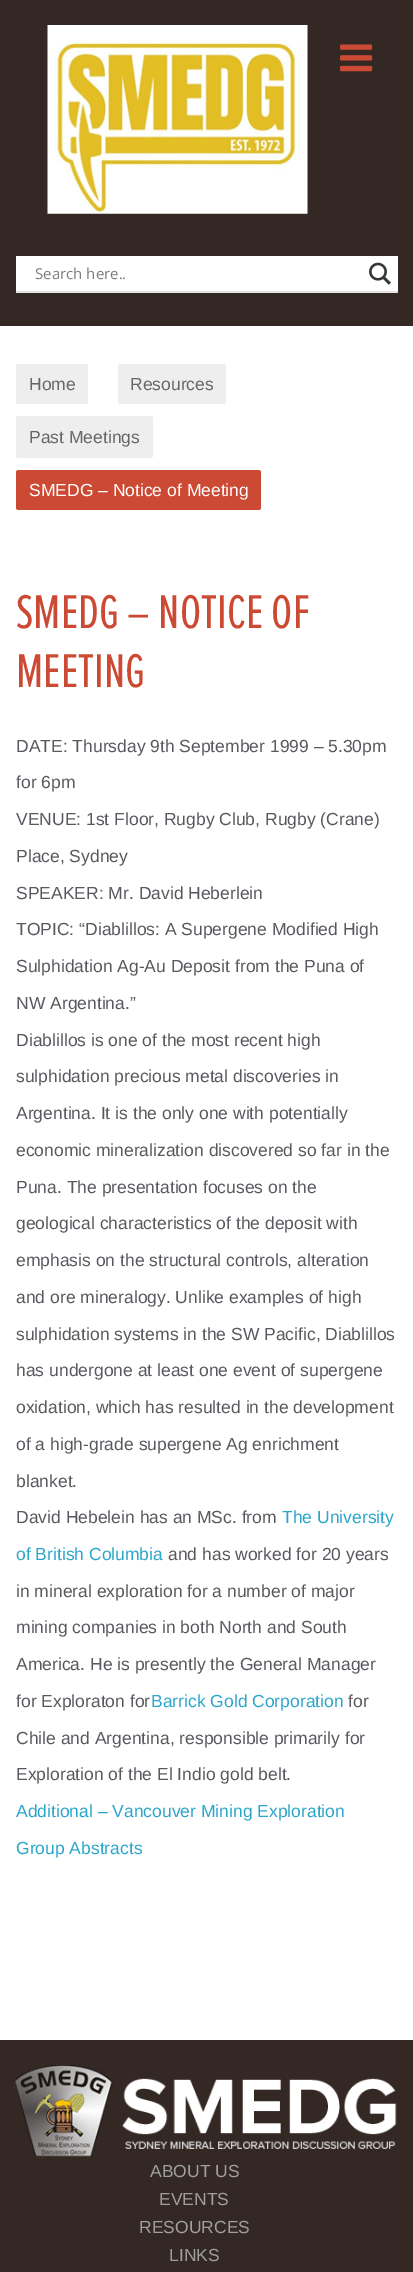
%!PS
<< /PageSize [413 2272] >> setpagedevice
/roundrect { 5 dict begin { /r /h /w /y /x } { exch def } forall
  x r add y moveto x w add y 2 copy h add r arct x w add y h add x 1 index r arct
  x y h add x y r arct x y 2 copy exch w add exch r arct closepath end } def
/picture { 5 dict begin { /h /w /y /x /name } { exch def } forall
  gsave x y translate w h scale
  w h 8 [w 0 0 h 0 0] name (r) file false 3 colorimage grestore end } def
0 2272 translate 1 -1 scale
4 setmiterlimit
1 setgray
0 0 413 2272 rectfill
0.204 0.157 0.145 setrgbcolor
0 0 413 326 rectfill
(img1.rgb) 47 25 261 189 picture
(img2.rgb) 340 44 33 28 picture
0.894 setgray
newpath 16 258 moveto 16 293 lineto 398 293 lineto 398 258 lineto 398 291 lineto 16 291 lineto closepath fill
1 setgray
16 256 382 35 rectfill
/OpenSans-Regular [15 0 0 -15 0 0] selectfont
0.49 setgray
35 279 moveto (Search here..) show
(img3.rgb) 369 262 22 23 picture
0.933 setgray
16 364 72 40 2.5 roundrect fill
/LiberationSans-Regular [17.5 0 0 -17.5 0 0] selectfont
0.4 setgray
29 390 moveto (Home) show
0.933 setgray
118 364 108 40 2.5 roundrect fill
0.4 setgray
130 390 moveto (Resources) show
0.933 setgray
16 416 137 42 2.5 roundrect fill
0.4 setgray
29 443 moveto (Past Meetings) show
0.8 0.29 0.204 setrgbcolor
16 470 245 40 2.5 roundrect fill
1 setgray
29 496 moveto (SMEDG – Notice of Meeting) show
/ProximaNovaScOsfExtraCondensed-Regular [49 0 0 -49 0 0] selectfont
0.8 0.29 0.204 setrgbcolor
16 628 moveto (SMEDG – NOTICE OF) show
16 687 moveto (MEETING) show
/LiberationSans-Regular [17.5 0 0 -17.5 0 0] selectfont
0.349 0.345 0.369 setrgbcolor
16 752 moveto (DATE: Thursday 9th September 1999 – 5.30pm) show
16 788 moveto (for 6pm) show
16 825 moveto (VENUE: 1st Floor, Rugby Club, Rugby \(Crane\)) show
16 862 moveto (Place, Sydney) show
16 899 moveto (SPEAKER: Mr. David Heberlein) show
16 935 moveto (TOPIC: “Diablillos: A Supergene Modified High) show
16 972 moveto (Sulphidation Ag-Au Deposit from the Puna of) show
16 1009 moveto (NW Argentina.”) show
16 1046 moveto (Diablillos is one of the most recent high) show
16 1082 moveto (sulphidation precious metal discoveries in) show
16 1119 moveto (Argentina. It is the only one with potentially) show
16 1156 moveto (economic mineralization discovered so far in the) show
16 1193 moveto (Puna. The presentation focuses on the) show
16 1229 moveto (geological characteristics of the deposit with) show
16 1266 moveto (emphasis on the structural controls, alteration) show
16 1303 moveto (and ore mineralogy. Unlike examples of high) show
16 1340 moveto (sulphidation systems in the SW Pacific, Diablillos) show
16 1376 moveto (has undergone at least one event of supergene) show
16 1413 moveto (oxidation, which has resulted in the development) show
16 1450 moveto (of a high-grade supergene Ag enrichment) show
16 1487 moveto (blanket.) show
16 1523 moveto (David Hebelein has an MSc. from) show
0.169 0.651 0.796 setrgbcolor
282 1523 moveto (The University) show
16 1560 moveto (of British Columbia) show
0.349 0.345 0.369 setrgbcolor
168 1560 moveto (and has worked for 20 years) show
16 1597 moveto (in mineral exploration for a number of major) show
16 1633 moveto (mining companies in both North and South) show
16 1670 moveto (America. He is presently the General Manager) show
16 1707 moveto (for Exploraton for) show
0.169 0.651 0.796 setrgbcolor
151 1707 moveto (Barrick Gold Corporation) show
0.349 0.345 0.369 setrgbcolor
348 1707 moveto (for) show
16 1744 moveto (Chile and Argentina, responsible primarily for) show
16 1780 moveto (Exploration of the El Indio gold belt.) show
0.169 0.651 0.796 setrgbcolor
16 1817 moveto (Additional – Vancouver Mining Exploration) show
16 1854 moveto (Group Abstracts) show
0.204 0.157 0.145 setrgbcolor
0 2040 413 232 rectfill
(img4.rgb) 13 2065 384 92 picture
0.624 setgray
150 2177 moveto (ABOUT US) show
159 2205 moveto (EVENTS) show
139 2233 moveto (RESOURCES) show
169 2261 moveto (LINKS) show
showpage
